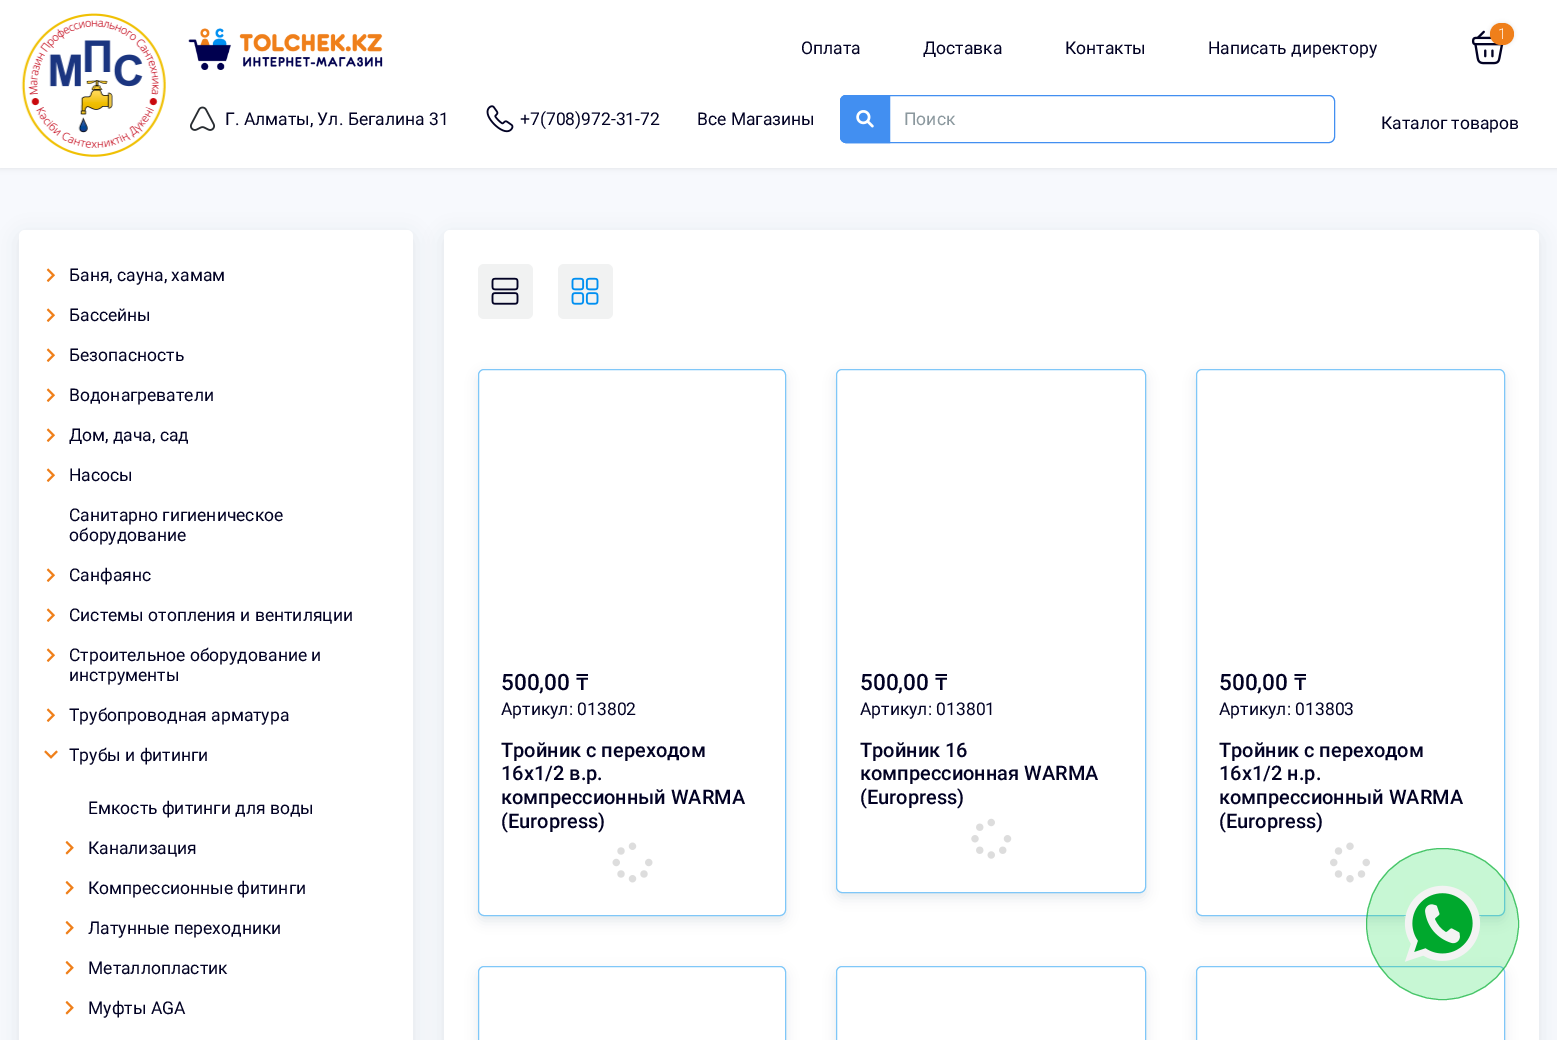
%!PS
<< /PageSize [1557 1040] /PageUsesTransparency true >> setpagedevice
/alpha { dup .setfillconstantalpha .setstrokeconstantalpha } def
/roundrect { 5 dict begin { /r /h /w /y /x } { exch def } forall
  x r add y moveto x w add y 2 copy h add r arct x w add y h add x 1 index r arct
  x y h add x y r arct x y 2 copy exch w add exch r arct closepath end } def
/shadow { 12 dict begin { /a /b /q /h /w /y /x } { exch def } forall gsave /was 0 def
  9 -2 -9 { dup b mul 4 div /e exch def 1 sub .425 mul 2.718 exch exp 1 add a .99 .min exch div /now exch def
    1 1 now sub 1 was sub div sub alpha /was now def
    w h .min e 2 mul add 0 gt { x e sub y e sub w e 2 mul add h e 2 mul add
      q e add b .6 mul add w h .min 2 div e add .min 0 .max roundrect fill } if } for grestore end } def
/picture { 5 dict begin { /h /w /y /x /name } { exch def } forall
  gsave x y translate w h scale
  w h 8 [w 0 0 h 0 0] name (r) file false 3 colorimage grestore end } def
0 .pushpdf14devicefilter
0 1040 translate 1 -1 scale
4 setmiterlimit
0.969 0.976 0.992 setrgbcolor
0 0 1557 1040 rectfill
0 setgray
0 0 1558 168 0 3 0.1 shadow
1 setgray
0 0 1557 168 rectfill
(img1.rgb) 21 13 145 144 picture
(img2.rgb) 188 28 195 42 picture
(img3.rgb) 1471 30 34 35 picture
0 setgray
1490 23 24 22 11 2 0.1 shadow
0.937 0.498 0.102 setrgbcolor
1490 23 24 22 11 roundrect fill
/Roboto-Light [15 0 0 -15 0 0] selectfont
1 setgray
1498 39 moveto (1) show
/Roboto-Regular [17.5 0 0 -17.5 0 0] selectfont
0.008 0.008 0.141 setrgbcolor
801 54 moveto (Оплата) show
923 54 moveto (Доставка) show
1065 54 moveto (Контакты) show
1208 54 moveto (Написать директору) show
(img4.rgb) 190 106 25 25 picture
225 125 moveto (Г. Алматы, Ул. Бегалина 31) show
(img5.rgb) 486 105 28 28 picture
520 125 moveto (+7\(708\)972-31-72) show
697 125 moveto (Все Магазины) show
0.259 0.561 0.945 setrgbcolor
840.5 95.5 494 47 5.5 roundrect stroke
newpath 846 95.5 moveto 889.5 95.5 lineto 889.5 142.5 lineto 846 142.5 lineto 843 142.5 840.5 140 840.5 137 curveto 840.5 101 lineto 840.5 98 843 95.5 846 95.5 curveto closepath gsave fill grestore
stroke
(img6.rgb) 856 110 18 18 picture
0.545 0.596 0.62 setrgbcolor
904 125 moveto (Поиск) show
0.008 0.008 0.141 setrgbcolor
1381 129 moveto (Каталог товаров) show
0.192 0.224 0.243 setrgbcolor
19 235 394 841 6 10 0.1 shadow
1 setgray
19 230 394 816 6 roundrect fill
(img7.rgb) 46 268 9 14 picture
0.008 0.008 0.141 setrgbcolor
69 281 moveto (Баня, сауна, хамам) show
(img7.rgb) 46 308 9 14 picture
69 321 moveto (Бассейны) show
(img7.rgb) 46 348 9 14 picture
69 361 moveto (Безопасность) show
(img7.rgb) 46 388 9 14 picture
69 401 moveto (Водонагреватели) show
(img7.rgb) 46 428 9 14 picture
69 441 moveto (Дом, дача, сад) show
(img7.rgb) 46 468 9 14 picture
69 481 moveto (Насосы) show
69 521 moveto (Санитарно гигиеническое) show
69 541 moveto (оборудование) show
(img7.rgb) 46 568 9 14 picture
69 581 moveto (Санфаянс) show
(img7.rgb) 46 608 9 14 picture
69 621 moveto (Системы отопления и вентиляции) show
(img7.rgb) 46 648 9 14 picture
69 661 moveto (Строительное оборудование и) show
69 681 moveto (инструменты) show
(img7.rgb) 46 708 9 14 picture
69 721 moveto (Трубопроводная арматура) show
(img8.rgb) 44 750 14 9 picture
69 761 moveto (Трубы и фитинги) show
88 814 moveto (Емкость фитинги для воды) show
(img9.rgb) 65 841 9 14 picture
88 854 moveto (Канализация) show
(img9.rgb) 65 881 9 14 picture
88 894 moveto (Компрессионные фитинги) show
(img9.rgb) 65 921 9 14 picture
88 934 moveto (Латунные переходники) show
(img9.rgb) 65 961 9 14 picture
88 974 moveto (Металлопластик) show
(img9.rgb) 65 1001 9 14 picture
88 1014 moveto (Муфты AGA) show
0.192 0.224 0.243 setrgbcolor
444 235 1095 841 6 10 0.1 shadow
1 setgray
444 230 1095 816 6 roundrect fill
0.945 0.949 0.949 setrgbcolor
478 264 55 55 6 roundrect fill
(img10.rgb) 491 277 28 28 picture
558 264 55 55 6 roundrect fill
(img11.rgb) 571 277 28 28 picture
0.024 0.208 0.322 setrgbcolor
478 374 308 547 6 6 0.11 shadow
1 setgray
478.5 369.5 307 546 5.5 roundrect gsave fill grestore
0.498 0.78 0.973 setrgbcolor
stroke
/Roboto-Medium [22.5 0 0 -22.5 0 0] selectfont
0.008 0.008 0.141 setrgbcolor
501 690 moveto (500,00) show
/NotoSans-Medium [22.5 0 0 -22.5 0 0] selectfont
576 690 moveto (₸) show
/Roboto-Regular [17.5 0 0 -17.5 0 0] selectfont
501 715 moveto (Артикул: 013802) show
/Roboto-Medium [20 0 0 -20 0 0] selectfont
501 757 moveto (Тройник с переходом) show
501 780 moveto (16х1/2 в.р.) show
501 804 moveto (компрессионный WARMA) show
501 828 moveto (\(Europress\)) show
(img12.rgb) 612 842 41 41 picture
0.024 0.208 0.322 setrgbcolor
836 374 310 524 6 6 0.11 shadow
1 setgray
836 369 310 524 6 roundrect fill
0.5 alpha
0 0.561 0.945 setrgbcolor
836.5 369.5 309 523 5.5 roundrect stroke
/Roboto-Medium [22.5 0 0 -22.5 0 0] selectfont
1 alpha
0.008 0.008 0.141 setrgbcolor
860 690 moveto (500,00) show
/NotoSans-Medium [22.5 0 0 -22.5 0 0] selectfont
935 690 moveto (₸) show
/Roboto-Regular [17.5 0 0 -17.5 0 0] selectfont
860 715 moveto (Артикул: 013801) show
/Roboto-Medium [20 0 0 -20 0 0] selectfont
860 757 moveto (Тройник 16) show
860 780 moveto (компрессионная WARMA) show
860 804 moveto (\(Europress\)) show
(img13.rgb) 971 818 41 41 picture
0.024 0.208 0.322 setrgbcolor
1196 374 309 547 6 6 0.11 shadow
1 setgray
1196.5 369.5 308 546 5.5 roundrect gsave fill grestore
0.498 0.78 0.973 setrgbcolor
stroke
/Roboto-Medium [22.5 0 0 -22.5 0 0] selectfont
0.008 0.008 0.141 setrgbcolor
1219 690 moveto (500,00) show
/NotoSans-Medium [22.5 0 0 -22.5 0 0] selectfont
1294 690 moveto (₸) show
/Roboto-Regular [17.5 0 0 -17.5 0 0] selectfont
1219 715 moveto (Артикул: 013803) show
/Roboto-Medium [20 0 0 -20 0 0] selectfont
1219 757 moveto (Тройник с переходом) show
1219 780 moveto (16х1/2 н.р.) show
1219 804 moveto (компрессионный WARMA) show
1219 828 moveto (\(Europress\)) show
(img14.rgb) 1330 842 40 41 picture
0.024 0.208 0.322 setrgbcolor
478 971 308 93 6 6 0.11 shadow
1 setgray
478.5 966.5 307 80 5.5 roundrect gsave fill grestore
0.498 0.78 0.973 setrgbcolor
stroke
0.024 0.208 0.322 setrgbcolor
836 971 310 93 6 6 0.11 shadow
1 setgray
836.5 966.5 309 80 5.5 roundrect gsave fill grestore
0.498 0.78 0.973 setrgbcolor
stroke
0.024 0.208 0.322 setrgbcolor
1196 971 309 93 6 6 0.11 shadow
1 setgray
1196.5 966.5 308 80 5.5 roundrect gsave fill grestore
0.498 0.78 0.973 setrgbcolor
stroke
0.22 alpha
0 0.851 0.224 setrgbcolor
1366 848 153 152 76 roundrect fill
0.65 alpha
0 0.659 0.176 setrgbcolor
1366.5 848.5 152 151 75.5 roundrect stroke
1 alpha
(img15.rgb) 1404 885 77 77 picture
.poppdf14devicefilter showpage
